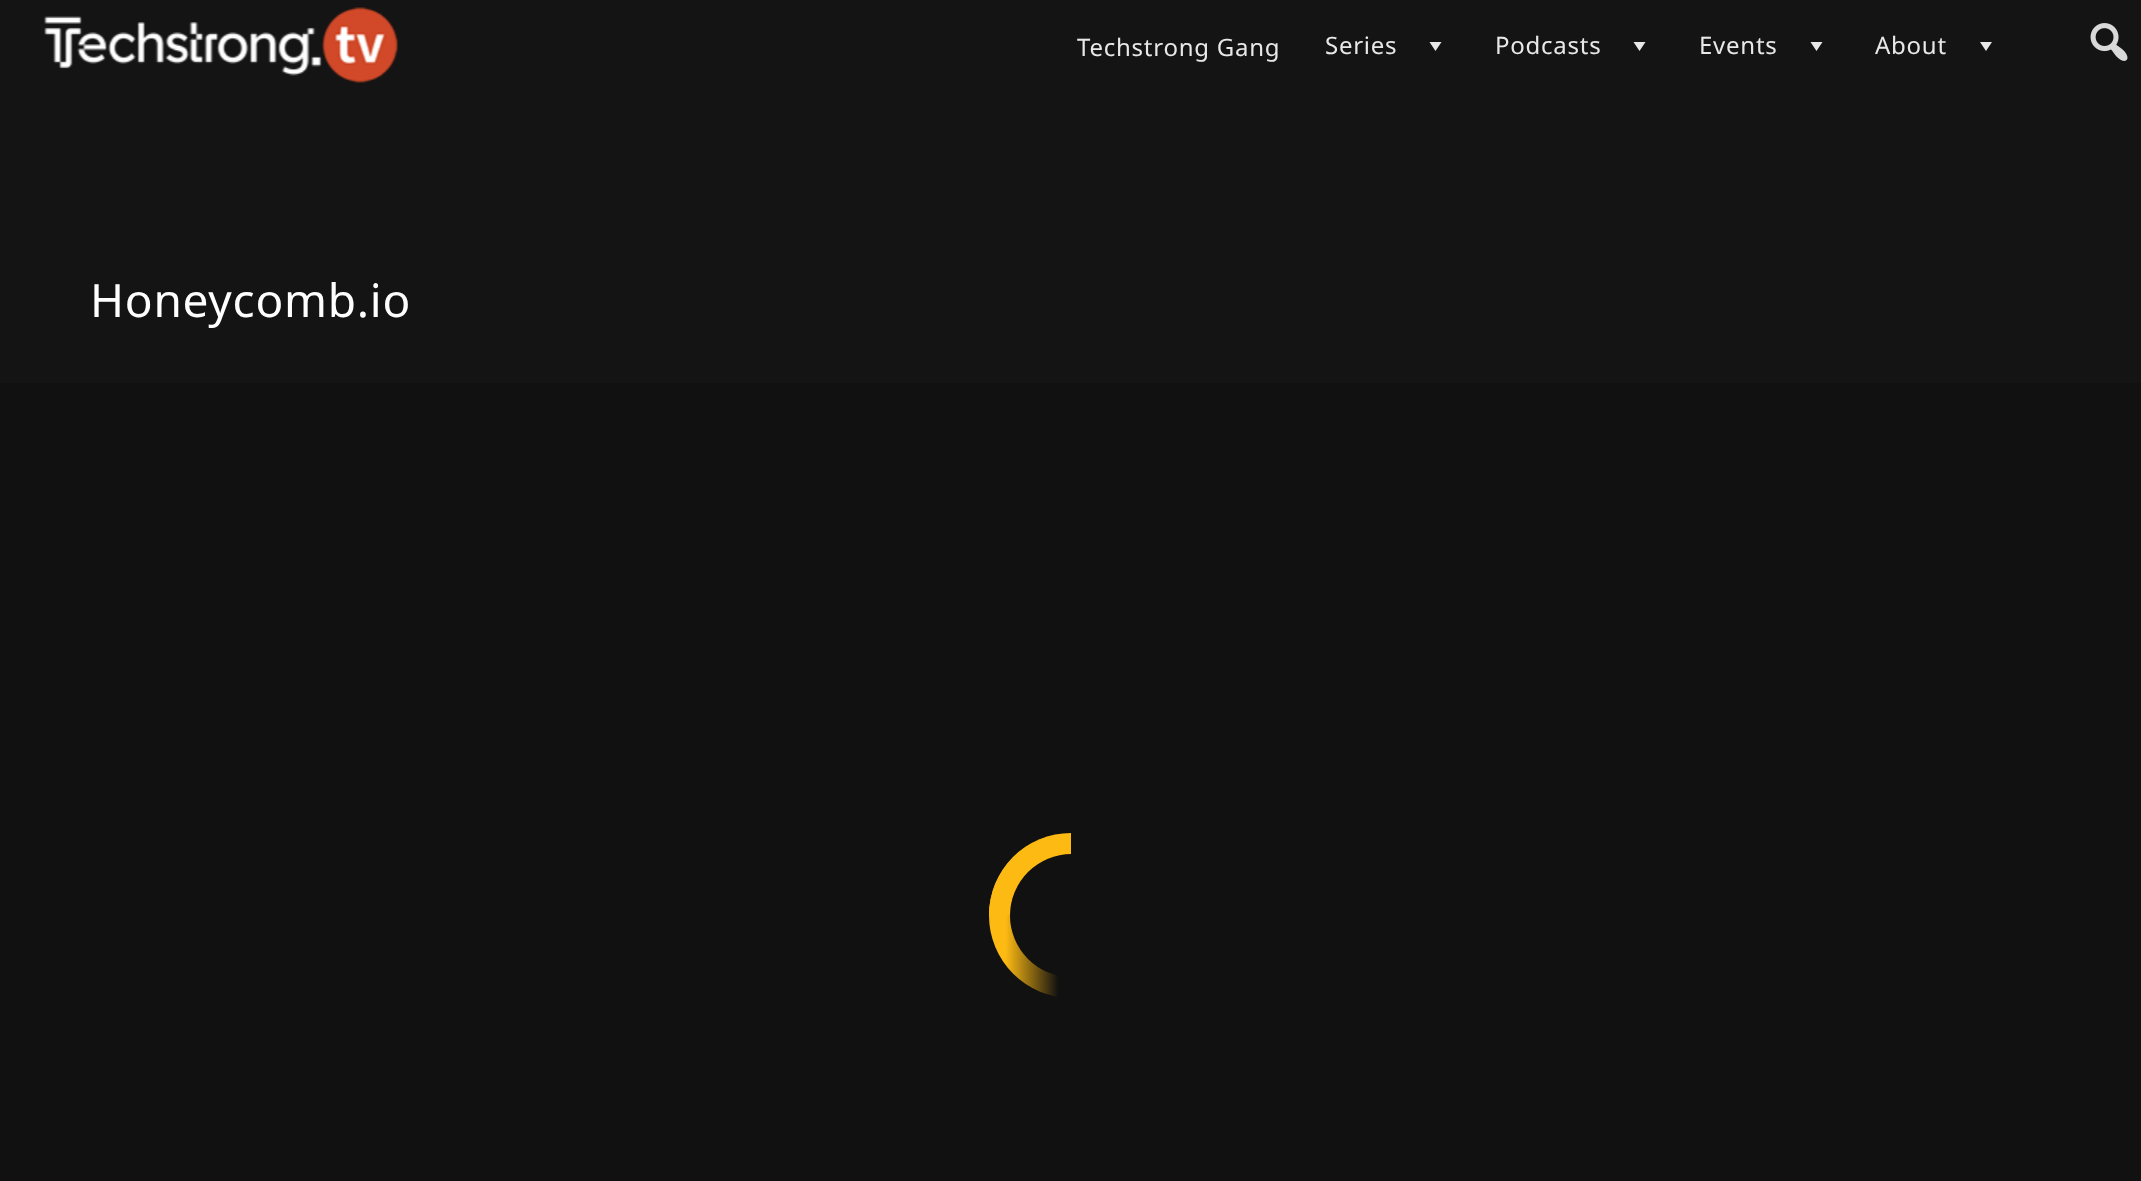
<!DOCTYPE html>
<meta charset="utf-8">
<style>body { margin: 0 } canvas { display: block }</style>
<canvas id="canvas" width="2141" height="1181"></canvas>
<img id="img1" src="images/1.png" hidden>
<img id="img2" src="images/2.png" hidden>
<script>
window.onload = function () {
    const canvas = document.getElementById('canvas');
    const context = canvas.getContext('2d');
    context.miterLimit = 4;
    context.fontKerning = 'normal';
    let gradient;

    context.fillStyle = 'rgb(20, 20, 20)';
    context.fillRect(0, 0, 2141, 1181);
    context.drawImage(document.getElementById('img1'), 44, 7, 354, 76);
    context.fillStyle = 'rgb(232, 232, 232)';
    context.beginPath();
    context.moveTo(1441.5, 42);
    context.lineTo(1435.5, 51);
    context.lineTo(1429.5, 42);
    context.closePath();
    context.fill();
    context.beginPath();
    context.moveTo(1645.5, 42);
    context.lineTo(1639.5, 51);
    context.lineTo(1633.5, 42);
    context.closePath();
    context.fill();
    context.beginPath();
    context.moveTo(1822.5, 42);
    context.lineTo(1816.5, 51);
    context.lineTo(1810.5, 42);
    context.closePath();
    context.fill();
    context.beginPath();
    context.moveTo(1992, 42);
    context.lineTo(1986, 51);
    context.lineTo(1980, 42);
    context.closePath();
    context.fill();
    context.drawImage(document.getElementById('img2'), 2090, 23, 38, 38);
    context.fillStyle = 'rgb(17, 17, 17)';
    context.fillRect(0, 383, 2141, 798);
    gradient = context.createLinearGradient(989, 915, 1154, 915);
    gradient.addColorStop(0.1, 'rgb(253, 186, 19)');
    gradient.addColorStop(0.42, 'rgb(17, 17, 17)');
    context.fillStyle = gradient;
    context.beginPath();
    context.arc(1071.5, 915.5, 82.5, 0, 2 * Math.PI);
    context.fill();
    context.fillStyle = 'rgb(253, 186, 19)';
    context.beginPath();
    context.roundRect(989, 833, 82, 82, [82, 0, 0, 0]);
    context.fill();
    context.fillStyle = 'rgb(17, 17, 17)';
    context.beginPath();
    context.arc(1071.5, 915.5, 61.5, 0, 2 * Math.PI);
    context.fill();
    context.letterSpacing = '0.75px';
    context.font = '24px Noto Sans';
    context.fillStyle = 'rgb(232, 232, 232)';
    context.fillText('Techstrong Gang', 1077, 56);
    context.fillText('Series', 1325, 54);
    context.fillText('Podcasts', 1495, 54);
    context.fillText('Events', 1699, 54);
    context.fillText('About', 1875, 54);
    context.font = '46px Noto Sans';
    context.fillStyle = 'rgb(255, 255, 255)';
    context.fillText('Honeycomb.io', 90, 317);
};
</script>
